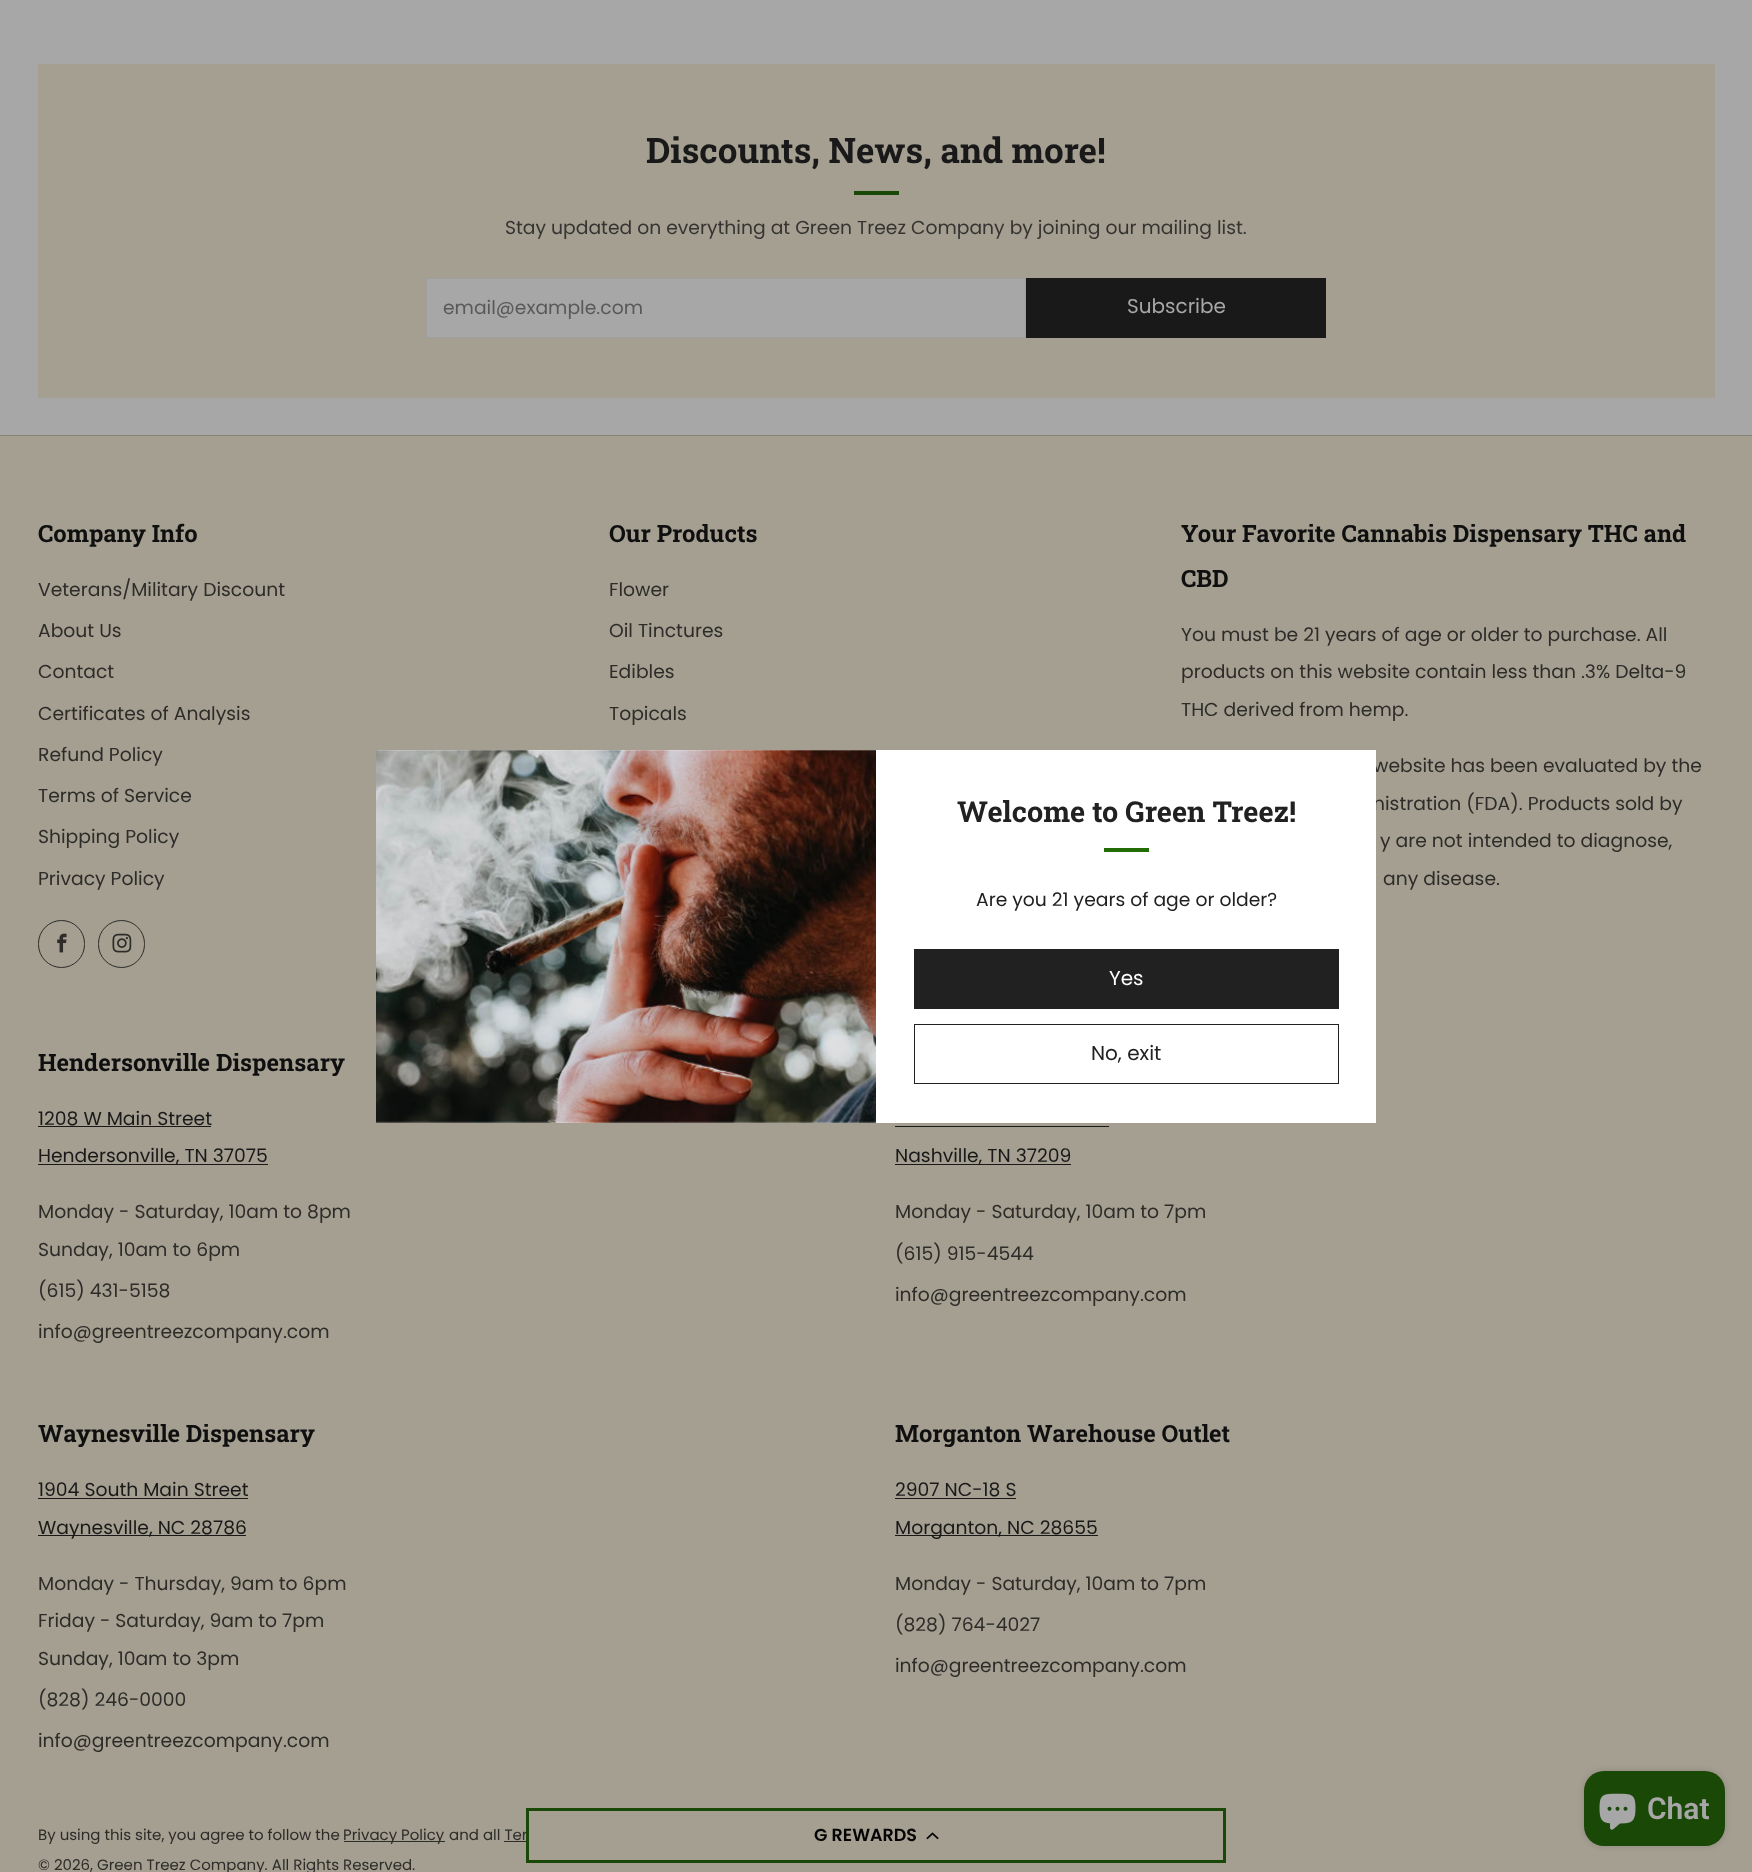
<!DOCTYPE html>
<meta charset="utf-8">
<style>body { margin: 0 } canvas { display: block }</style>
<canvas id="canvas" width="1752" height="1872"></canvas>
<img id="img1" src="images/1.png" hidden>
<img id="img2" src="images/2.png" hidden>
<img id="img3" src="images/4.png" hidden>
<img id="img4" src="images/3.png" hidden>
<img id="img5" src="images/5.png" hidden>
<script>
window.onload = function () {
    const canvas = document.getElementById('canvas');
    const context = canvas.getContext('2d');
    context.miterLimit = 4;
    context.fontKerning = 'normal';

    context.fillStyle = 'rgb(167, 167, 167)';
    context.fillRect(0, 0, 1752, 1872);
    context.fillStyle = 'rgb(164, 159, 145)';
    context.fillRect(38, 64, 1677, 334);
    context.fillStyle = 'rgb(26, 72, 7)';
    context.fillRect(854, 191, 45, 4);
    context.fillStyle = 'rgb(167, 167, 167)';
    context.beginPath();
    context.rect(426.5, 278.5, 599, 59);
    context.fill();
    context.strokeStyle = 'rgb(158, 158, 158)';
    context.stroke();
    context.fillStyle = 'rgb(25, 25, 25)';
    context.fillRect(1026, 278, 300, 60);
    context.fillStyle = 'rgb(164, 159, 145)';
    context.fillRect(0, 436, 1752, 1436);
    context.fillStyle = 'rgb(134, 131, 119)';
    context.fillRect(0, 435, 1752, 1);
    context.beginPath();
    context.roundRect(38.5, 920.5, 46, 47, 23);
    context.strokeStyle = 'rgb(45, 44, 41)';
    context.stroke();
    context.drawImage(document.getElementById('img1'), 57, 933, 10, 20);
    context.beginPath();
    context.roundRect(98.5, 920.5, 46, 47, 23);
    context.stroke();
    context.drawImage(document.getElementById('img2'), 112, 933, 20, 20);
    context.fillStyle = 'rgb(25, 25, 25)';
    context.fillRect(38, 1126, 173, 1);
    context.fillRect(38, 1164, 230, 1);
    context.fillRect(895, 1126, 214, 1);
    context.fillRect(895, 1164, 176, 1);
    context.fillRect(38, 1498, 210, 1);
    context.fillRect(38, 1535, 208, 1);
    context.fillRect(895, 1498, 121, 1);
    context.fillRect(895, 1535, 203, 1);
    context.fillStyle = 'rgb(45, 44, 41)';
    context.fillRect(344, 1841, 101, 1);
    context.fillRect(504, 1841, 22, 1);
    context.fillStyle = 'rgba(4, 4, 4, 0.15)';
    context.filter = 'blur(3px)';
    context.beginPath();
    context.roundRect(1584, 1771, 141, 75, 20);
    context.fill();
    context.filter = 'none';
    context.fillStyle = 'rgb(26, 72, 7)';
    context.beginPath();
    context.roundRect(1584, 1771, 141, 75, 20);
    context.fill();
    context.drawImage(document.getElementById('img3'), 1599, 1793, 37, 37);
    context.font = 'bold 35px Roboto Slab';
    context.fillStyle = 'rgb(25, 25, 25)';
    context.fillText('Discounts, News, and more!', 646, 163);
    context.font = '18.75px Poppins';
    context.fillStyle = 'rgb(53, 52, 49)';
    context.fillText('Stay updated on everything at Green Treez Company by joining our mailing list.', 505, 234);
    context.fillStyle = 'rgb(89, 89, 89)';
    context.fillText('email@example.com', 443, 314);
    context.font = '20px Poppins';
    context.fillStyle = 'rgb(167, 167, 167)';
    context.fillText('Subscribe', 1127, 313);
    context.font = 'bold 23.75px Roboto Slab';
    context.fillStyle = 'rgb(15, 15, 15)';
    context.fillText('Company Info', 38, 542);
    context.font = '18.75px Poppins';
    context.fillStyle = 'rgb(45, 44, 41)';
    context.fillText('Veterans/Military Discount', 38, 596);
    context.fillText('About Us', 38, 637);
    context.fillText('Contact', 38, 678);
    context.fillText('Certificates of Analysis', 38, 720);
    context.fillText('Refund Policy', 38, 761);
    context.fillText('Terms of Service', 38, 802);
    context.fillText('Shipping Policy', 38, 843);
    context.fillText('Privacy Policy', 38, 885);
    context.font = 'bold 23.75px Roboto Slab';
    context.fillStyle = 'rgb(15, 15, 15)';
    context.fillText('Our Products', 609, 542);
    context.font = '18.75px Poppins';
    context.fillStyle = 'rgb(45, 44, 41)';
    context.fillText('Flower', 609, 596);
    context.fillText('Oil Tinctures', 609, 637);
    context.fillText('Edibles', 609, 678);
    context.fillText('Topicals', 609, 720);
    context.font = 'bold 23.75px Roboto Slab';
    context.fillStyle = 'rgb(15, 15, 15)';
    context.fillText('Your Favorite Cannabis Dispensary THC and', 1181, 542);
    context.fillText('CBD', 1181, 587);
    context.font = '18.75px Poppins';
    context.fillStyle = 'rgb(45, 44, 41)';
    context.fillText('You must be 21 years of age or older to purchase. All', 1181, 641);
    context.fillText('products on this website contain less than .3% Delta-9', 1181, 678);
    context.fillText('THC derived from hemp.', 1181, 716);
    context.fillText('website has been evaluated by the', 1373, 772);
    context.fillText('nistration (FDA). Products sold by', 1373, 810);
    context.fillText('y are not intended to diagnose,', 1380, 847);
    context.fillText('any disease.', 1383, 885);
    context.font = 'bold 23.75px Roboto Slab';
    context.fillStyle = 'rgb(15, 15, 15)';
    context.fillText('Hendersonville Dispensary', 38, 1071);
    context.font = '18.75px Poppins';
    context.fillStyle = 'rgb(25, 25, 25)';
    context.fillText('1208 W Main Street', 38, 1125);
    context.fillText('Hendersonville, TN 37075', 38, 1162);
    context.fillStyle = 'rgb(45, 44, 41)';
    context.fillText('Monday - Saturday, 10am to 8pm', 38, 1218);
    context.fillText('Sunday, 10am to 6pm', 38, 1256);
    context.fillText('(615) 431-5158', 38, 1297);
    context.fillText('info@greentreezcompany.com', 38, 1338);
    context.fillStyle = 'rgb(25, 25, 25)';
    context.fillText('Nashville, TN 37209', 895, 1162);
    context.fillStyle = 'rgb(45, 44, 41)';
    context.fillText('Monday - Saturday, 10am to 7pm', 895, 1218);
    context.fillText('(615) 915-4544', 895, 1260);
    context.fillText('info@greentreezcompany.com', 895, 1301);
    context.font = 'bold 23.75px Roboto Slab';
    context.fillStyle = 'rgb(15, 15, 15)';
    context.fillText('Waynesville Dispensary', 38, 1442);
    context.font = '18.75px Poppins';
    context.fillStyle = 'rgb(25, 25, 25)';
    context.fillText('1904 South Main Street', 38, 1496);
    context.fillText('Waynesville, NC 28786', 38, 1534);
    context.fillStyle = 'rgb(45, 44, 41)';
    context.fillText('Monday - Thursday, 9am to 6pm', 38, 1590);
    context.fillText('Friday - Saturday, 9am to 7pm', 38, 1627);
    context.fillText('Sunday, 10am to 3pm', 38, 1665);
    context.fillText('(828) 246-0000', 38, 1706);
    context.fillText('info@greentreezcompany.com', 38, 1747);
    context.font = 'bold 23.75px Roboto Slab';
    context.fillStyle = 'rgb(15, 15, 15)';
    context.fillText('Morganton Warehouse Outlet', 895, 1442);
    context.font = '18.75px Poppins';
    context.fillStyle = 'rgb(25, 25, 25)';
    context.fillText('2907 NC-18 S', 895, 1496);
    context.fillText('Morganton, NC 28655', 895, 1534);
    context.fillStyle = 'rgb(45, 44, 41)';
    context.fillText('Monday - Saturday, 10am to 7pm', 895, 1590);
    context.fillText('(828) 764-4027', 895, 1631);
    context.fillText('info@greentreezcompany.com', 895, 1672);
    context.font = '15px Poppins';
    context.fillText('By using this site, you agree to follow the', 38, 1840);
    context.fillText('Privacy Policy', 343, 1840);
    context.fillText('and all Ter', 449, 1840);
    context.fillText('© 2026, Green Treez Company. All Rights Reserved.', 38, 1870);
    context.fillStyle = 'rgb(255, 255, 255)';
    context.fillRect(376, 750, 1000, 373);
    context.drawImage(document.getElementById('img4'), 376, 750, 500, 373);
    context.font = 'bold 28.75px Roboto Slab';
    context.fillStyle = 'rgb(33, 33, 33)';
    context.fillText('Welcome to Green Treez!', 957, 822);
    context.fillStyle = 'rgb(35, 107, 5)';
    context.fillRect(1104, 848, 45, 4);
    context.font = '18.75px Poppins';
    context.fillStyle = 'rgb(33, 33, 33)';
    context.fillText('Are you 21 years of age or older?', 976, 906);
    context.fillRect(914, 949, 425, 60);
    context.font = '20px Poppins';
    context.fillStyle = 'rgb(255, 255, 255)';
    context.fillText('Yes', 1109, 985);
    context.strokeStyle = 'rgb(33, 33, 33)';
    context.strokeRect(914.5, 1024.5, 424, 59);
    context.fillStyle = 'rgb(33, 33, 33)';
    context.fillText('No, exit', 1091, 1060);
    context.font = '600 30px Roboto';
    context.fillStyle = 'rgb(167, 167, 167)';
    context.fillText('Chat', 1647, 1819);
    context.strokeStyle = 'rgb(26, 72, 7)';
    context.lineWidth = 3;
    context.strokeRect(527.5, 1809.5, 697, 52);
    context.font = '600 17.5px Poppins';
    context.fillStyle = 'rgb(4, 4, 4)';
    context.fillText('G REWARDS', 814, 1841);
    context.drawImage(document.getElementById('img5'), 926, 1832, 13, 8);
};
</script>
